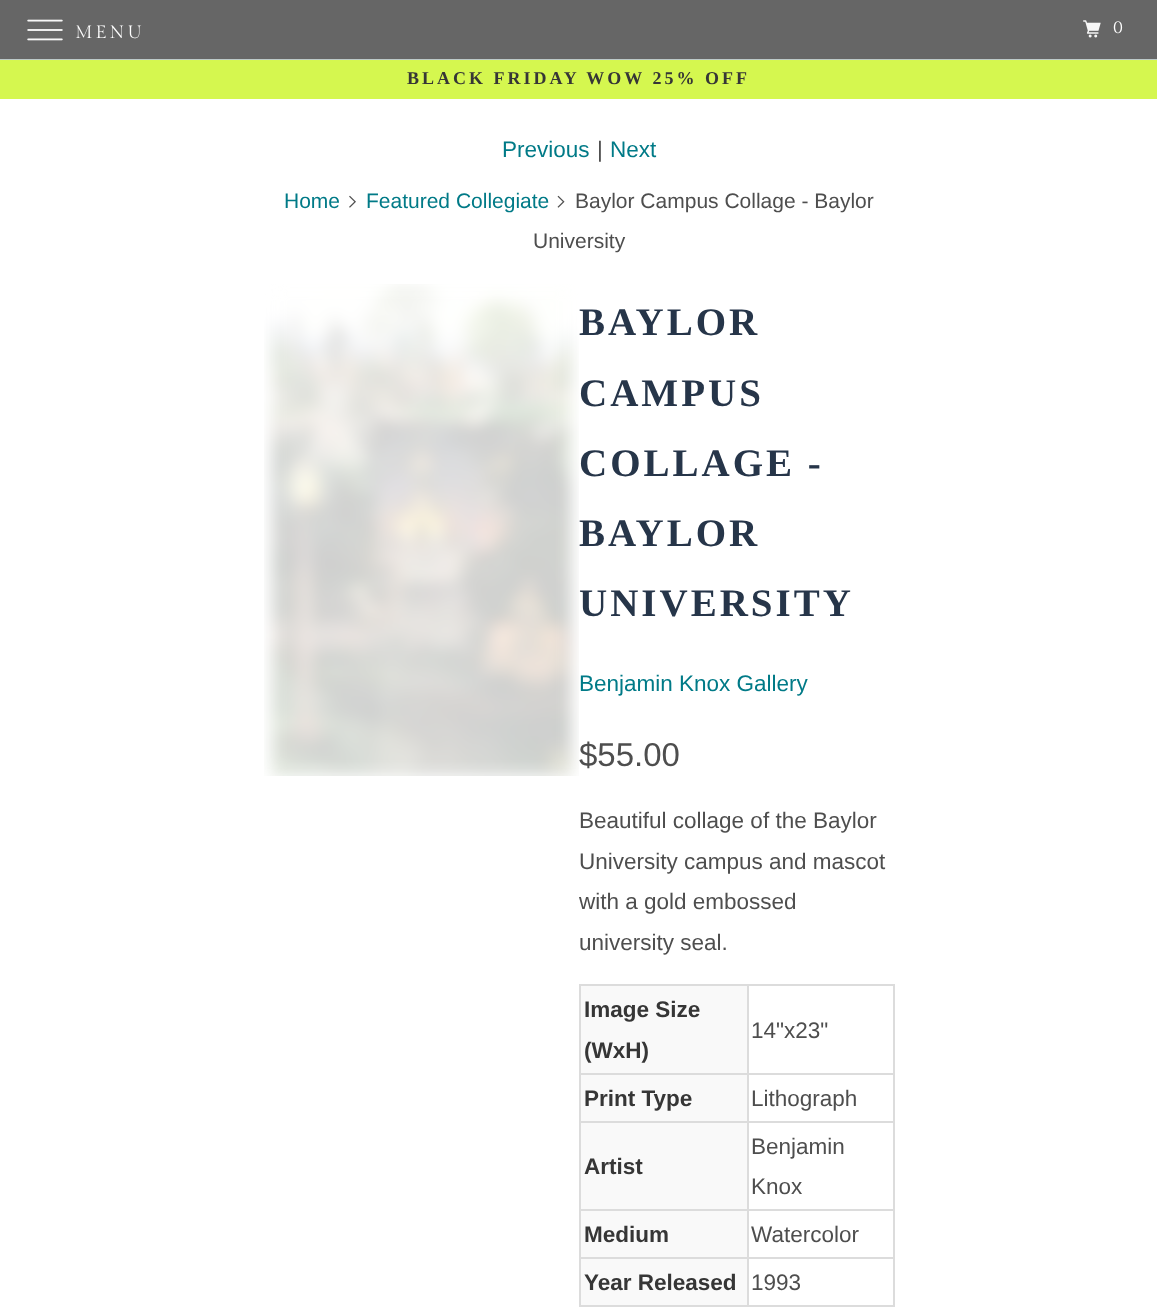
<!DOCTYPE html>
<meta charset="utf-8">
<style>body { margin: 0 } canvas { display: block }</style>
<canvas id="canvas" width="1157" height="1312"></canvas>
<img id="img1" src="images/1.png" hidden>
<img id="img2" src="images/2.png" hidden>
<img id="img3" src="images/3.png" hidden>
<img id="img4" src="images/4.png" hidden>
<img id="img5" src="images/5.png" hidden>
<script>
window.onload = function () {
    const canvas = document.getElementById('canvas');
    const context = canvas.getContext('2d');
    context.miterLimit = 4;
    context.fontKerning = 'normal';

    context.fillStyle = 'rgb(255, 255, 255)';
    context.fillRect(0, 0, 1157, 1312);
    context.fillStyle = 'rgb(102, 102, 102)';
    context.fillRect(0, 0, 1157, 59);
    context.fillStyle = 'rgb(188, 201, 201)';
    context.fillRect(0, 59, 1157, 1);
    context.drawImage(document.getElementById('img1'), 27, 19, 36, 22);
    context.drawImage(document.getElementById('img2'), 1083, 20, 18, 18);
    context.fillStyle = 'rgb(213, 247, 79)';
    context.fillRect(0, 60, 1157, 39);
    context.drawImage(document.getElementById('img3'), 349, 195, 7, 13);
    context.drawImage(document.getElementById('img4'), 557, 195, 8, 13);
    context.drawImage(document.getElementById('img5'), 264, 284, 315, 492);
    context.fillStyle = 'rgb(220, 220, 220)';
    context.fillRect(579, 984, 315, 2);
    context.fillRect(579, 1073, 315, 2);
    context.fillStyle = 'rgb(249, 249, 249)';
    context.fillRect(581, 986, 166, 87);
    context.fillStyle = 'rgb(220, 220, 220)';
    context.fillRect(579, 1121, 315, 2);
    context.fillStyle = 'rgb(249, 249, 249)';
    context.fillRect(581, 1075, 166, 46);
    context.fillStyle = 'rgb(220, 220, 220)';
    context.fillRect(579, 1209, 315, 2);
    context.fillStyle = 'rgb(249, 249, 249)';
    context.fillRect(581, 1123, 166, 86);
    context.fillStyle = 'rgb(220, 220, 220)';
    context.fillRect(579, 1257, 315, 2);
    context.fillStyle = 'rgb(249, 249, 249)';
    context.fillRect(581, 1211, 166, 46);
    context.fillStyle = 'rgb(220, 220, 220)';
    context.fillRect(579, 1305, 315, 2);
    context.fillStyle = 'rgb(249, 249, 249)';
    context.fillRect(581, 1259, 166, 46);
    context.fillStyle = 'rgb(220, 220, 220)';
    context.fillRect(747, 984, 2, 323);
    context.fillRect(579, 984, 2, 323);
    context.fillRect(893, 984, 2, 323);
    context.letterSpacing = '3px';
    context.font = '18px Gilda Display';
    context.fillStyle = 'rgb(255, 255, 255)';
    context.fillText('MENU', 75, 38);
    context.fillText('0', 1113, 33);
    context.font = 'bold 18px Liberation Serif';
    context.fillStyle = 'rgb(54, 54, 54)';
    context.fillText('BLACK FRIDAY WOW 25% OFF', 407, 84);
    context.letterSpacing = '0px';
    context.font = '22.5px Liberation Sans';
    context.fillStyle = 'rgb(0, 122, 135)';
    context.fillText('Previous', 502, 157);
    context.fillStyle = 'rgb(78, 78, 78)';
    context.fillText('|', 597, 157);
    context.fillStyle = 'rgb(0, 122, 135)';
    context.fillText('Next', 610, 157);
    context.font = '21px Liberation Sans';
    context.fillText('Home', 284, 208);
    context.fillText('Featured Collegiate', 366, 208);
    context.fillStyle = 'rgb(78, 78, 78)';
    context.fillText('Baylor Campus Collage - Baylor', 575, 208);
    context.fillText('University', 533, 248);
    context.letterSpacing = '3px';
    context.font = 'bold 39px Liberation Serif';
    context.fillStyle = 'rgb(38, 53, 73)';
    context.fillText('BAYLOR', 579, 335);
    context.fillText('CAMPUS', 579, 406);
    context.fillText('COLLAGE -', 579, 476);
    context.fillText('BAYLOR', 579, 546);
    context.fillText('UNIVERSITY', 579, 616);
    context.letterSpacing = '0px';
    context.font = '22.5px Liberation Sans';
    context.fillStyle = 'rgb(0, 122, 135)';
    context.fillText('Benjamin Knox Gallery', 579, 691);
    context.font = '33px Liberation Sans';
    context.fillStyle = 'rgb(78, 78, 78)';
    context.fillText('$55.00', 579, 766);
    context.font = '22.5px Liberation Sans';
    context.fillText('Beautiful collage of the Baylor', 579, 828);
    context.fillText('University campus and mascot', 579, 869);
    context.fillText('with a gold embossed', 579, 909);
    context.fillText('university seal.', 579, 950);
    context.font = 'bold 22.5px Liberation Sans';
    context.fillStyle = 'rgb(54, 54, 54)';
    context.fillText('Image Size', 584, 1017);
    context.fillText('(WxH)', 584, 1058);
    context.font = '22.5px Liberation Sans';
    context.fillStyle = 'rgb(78, 78, 78)';
    context.fillText('14"x23"', 751, 1038);
    context.font = 'bold 22.5px Liberation Sans';
    context.fillStyle = 'rgb(54, 54, 54)';
    context.fillText('Print Type', 584, 1106);
    context.font = '22.5px Liberation Sans';
    context.fillStyle = 'rgb(78, 78, 78)';
    context.fillText('Lithograph', 751, 1106);
    context.font = 'bold 22.5px Liberation Sans';
    context.fillStyle = 'rgb(54, 54, 54)';
    context.fillText('Artist', 584, 1174);
    context.font = '22.5px Liberation Sans';
    context.fillStyle = 'rgb(78, 78, 78)';
    context.fillText('Benjamin', 751, 1154);
    context.fillText('Knox', 751, 1194);
    context.font = 'bold 22.5px Liberation Sans';
    context.fillStyle = 'rgb(54, 54, 54)';
    context.fillText('Medium', 584, 1242);
    context.font = '22.5px Liberation Sans';
    context.fillStyle = 'rgb(78, 78, 78)';
    context.fillText('Watercolor', 751, 1242);
    context.font = 'bold 22.5px Liberation Sans';
    context.fillStyle = 'rgb(54, 54, 54)';
    context.fillText('Year Released', 584, 1290);
    context.font = '22.5px Liberation Sans';
    context.fillStyle = 'rgb(78, 78, 78)';
    context.fillText('1993', 751, 1290);
};
</script>
